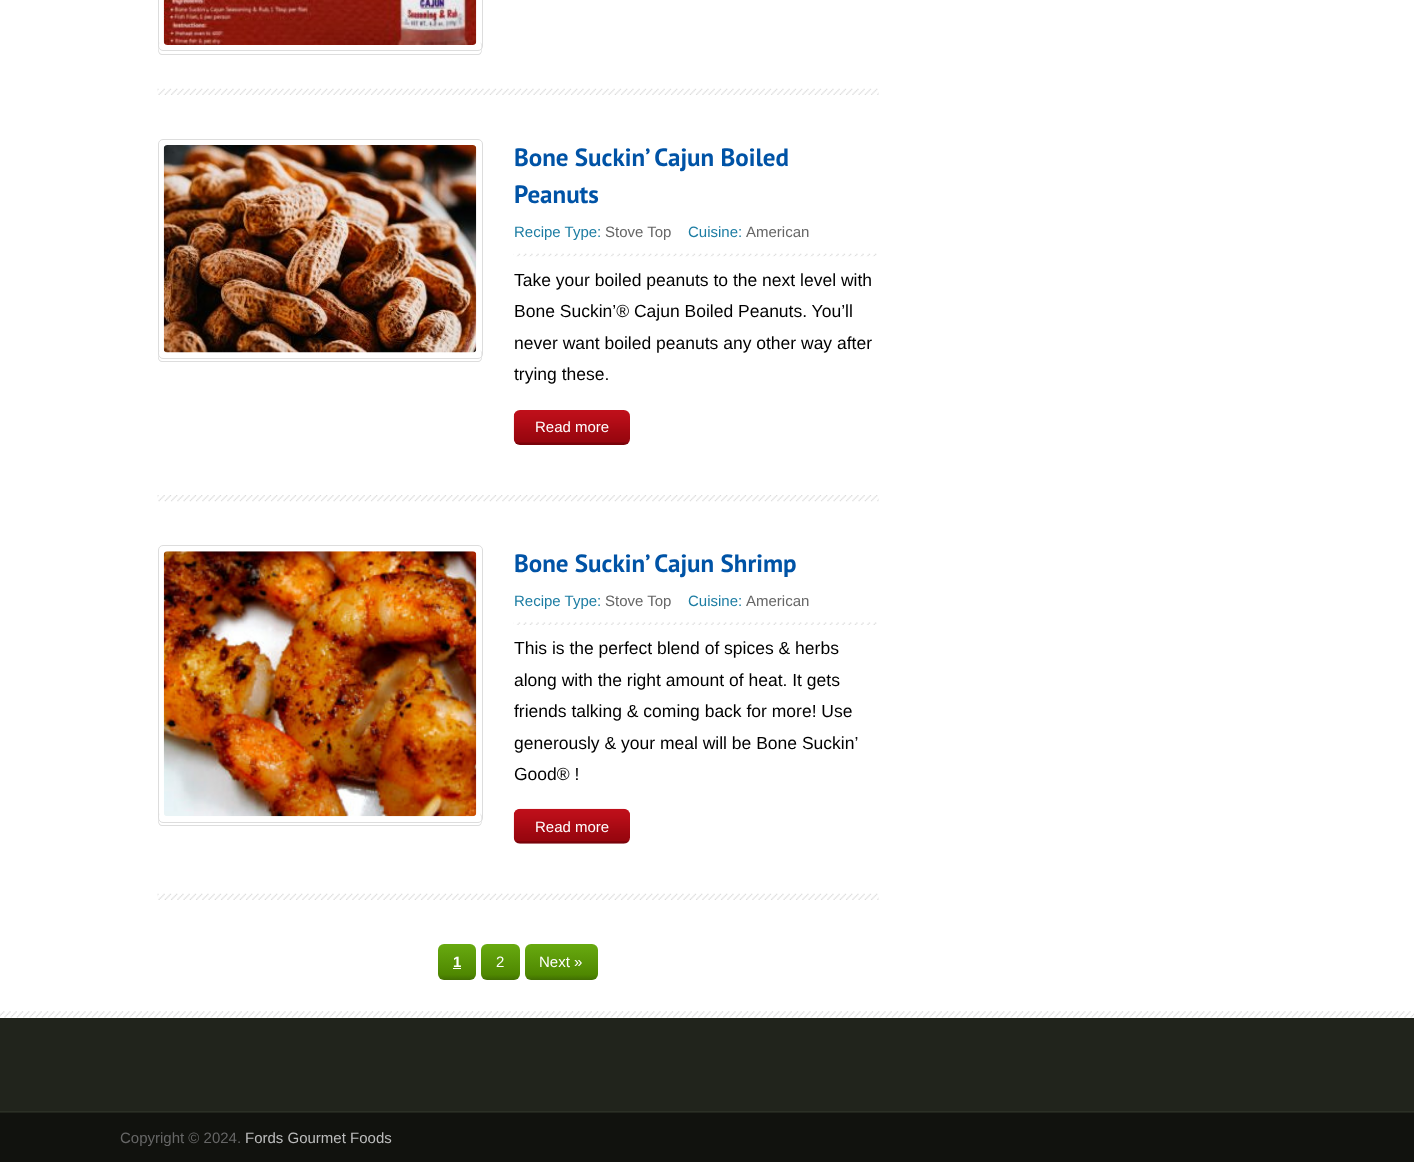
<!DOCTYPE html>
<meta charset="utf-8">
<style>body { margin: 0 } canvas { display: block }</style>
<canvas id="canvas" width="1414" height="1162"></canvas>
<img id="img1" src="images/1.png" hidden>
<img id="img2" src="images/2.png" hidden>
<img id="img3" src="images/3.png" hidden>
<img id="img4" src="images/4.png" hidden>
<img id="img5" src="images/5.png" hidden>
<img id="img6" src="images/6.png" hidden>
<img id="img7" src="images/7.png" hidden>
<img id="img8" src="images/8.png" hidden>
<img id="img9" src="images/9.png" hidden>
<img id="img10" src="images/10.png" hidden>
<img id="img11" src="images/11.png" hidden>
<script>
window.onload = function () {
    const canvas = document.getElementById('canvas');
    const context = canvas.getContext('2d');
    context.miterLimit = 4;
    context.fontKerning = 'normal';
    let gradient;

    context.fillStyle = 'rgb(255, 255, 255)';
    context.fillRect(0, 0, 1414, 1162);
    context.drawImage(document.getElementById('img1'), 157, 88, 722, 7);
    context.beginPath();
    context.roundRect(158.5, -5.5, 324, 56, 4.5);
    context.strokeStyle = 'rgb(221, 221, 221)';
    context.stroke();
    context.fillStyle = 'rgb(221, 221, 221)';
    context.beginPath();
    context.moveTo(162, 41);
    context.lineTo(478, 41);
    context.bezierCurveTo(480, 41, 482, 43, 482, 46);
    context.lineTo(482, 50);
    context.bezierCurveTo(482, 53, 480, 55, 478, 55);
    context.lineTo(162, 55);
    context.bezierCurveTo(160, 55, 158, 53, 158, 50);
    context.lineTo(158, 46);
    context.bezierCurveTo(158, 43, 160, 41, 162, 41);
    context.closePath();
    context.moveTo(162, 41);
    context.lineTo(478, 41);
    context.bezierCurveTo(479, 41, 480, 43, 481, 44);
    context.bezierCurveTo(482, 47, 482, 54, 478, 54);
    context.lineTo(162, 54);
    context.bezierCurveTo(157, 54, 158, 41, 162, 41);
    context.closePath();
    context.fill('evenodd');
    context.fillStyle = 'rgb(255, 255, 255)';
    context.beginPath();
    context.roundRect(159, -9, 322, 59, 9);
    context.fill();
    context.drawImage(document.getElementById('img2'), 163, 0, 314, 45);
    context.drawImage(document.getElementById('img3'), 157, 495, 722, 7);
    context.beginPath();
    context.roundRect(158.5, 139.5, 324, 219, 4.5);
    context.stroke();
    context.fillStyle = 'rgb(221, 221, 221)';
    context.beginPath();
    context.moveTo(162, 349);
    context.lineTo(478, 349);
    context.bezierCurveTo(480, 349, 482, 351, 482, 354);
    context.lineTo(482, 358);
    context.bezierCurveTo(482, 360, 480, 362, 478, 362);
    context.lineTo(162, 362);
    context.bezierCurveTo(160, 362, 158, 360, 158, 358);
    context.lineTo(158, 354);
    context.bezierCurveTo(158, 351, 160, 349, 162, 349);
    context.closePath();
    context.moveTo(162, 349);
    context.lineTo(478, 349);
    context.bezierCurveTo(479, 349, 480, 350, 481, 352);
    context.bezierCurveTo(482, 355, 482, 361, 478, 361);
    context.lineTo(162, 361);
    context.bezierCurveTo(157, 361, 158, 349, 162, 349);
    context.closePath();
    context.fill('evenodd');
    context.fillStyle = 'rgb(255, 255, 255)';
    context.beginPath();
    context.roundRect(159, 140, 322, 218, 9);
    context.fill();
    context.drawImage(document.getElementById('img4'), 163, 145, 314, 208);
    context.drawImage(document.getElementById('img5'), 513, 253, 364, 4);
    context.drawImage(document.getElementById('img6'), 513, 410, 117, 35);
    context.drawImage(document.getElementById('img7'), 157, 893, 722, 7);
    context.beginPath();
    context.roundRect(158.5, 545.5, 324, 277, 4.5);
    context.stroke();
    context.fillStyle = 'rgb(221, 221, 221)';
    context.beginPath();
    context.moveTo(162, 812);
    context.lineTo(478, 812);
    context.bezierCurveTo(480, 812, 482, 815, 482, 818);
    context.lineTo(482, 821);
    context.bezierCurveTo(482, 824, 480, 826, 478, 826);
    context.lineTo(162, 826);
    context.bezierCurveTo(160, 826, 158, 824, 158, 821);
    context.lineTo(158, 818);
    context.bezierCurveTo(158, 815, 160, 812, 162, 812);
    context.closePath();
    context.moveTo(162, 812);
    context.lineTo(478, 812);
    context.bezierCurveTo(479, 813, 480, 814, 481, 816);
    context.bezierCurveTo(482, 819, 482, 825, 478, 825);
    context.lineTo(162, 825);
    context.bezierCurveTo(157, 825, 158, 812, 162, 812);
    context.closePath();
    context.fill('evenodd');
    context.fillStyle = 'rgb(255, 255, 255)';
    context.beginPath();
    context.roundRect(159, 546, 322, 275, 9);
    context.fill();
    context.drawImage(document.getElementById('img8'), 163, 551, 314, 266);
    context.drawImage(document.getElementById('img9'), 513, 622, 364, 3);
    context.drawImage(document.getElementById('img10'), 513, 808, 117, 36);
    gradient = context.createLinearGradient(457, 980, 457, 944);
    gradient.addColorStop(0, 'rgb(65, 111, 3)');
    gradient.addColorStop(0.15, 'rgb(79, 136, 1)');
    gradient.addColorStop(1, 'rgb(104, 170, 16)');
    context.fillStyle = gradient;
    context.beginPath();
    context.roundRect(438, 944, 38, 36, 6);
    context.fill();
    context.fillStyle = 'rgb(255, 255, 255)';
    context.fillRect(453, 968, 8, 1);
    gradient = context.createLinearGradient(501, 980, 501, 944);
    gradient.addColorStop(0, 'rgb(65, 111, 3)');
    gradient.addColorStop(0.15, 'rgb(79, 136, 1)');
    gradient.addColorStop(1, 'rgb(104, 170, 16)');
    context.fillStyle = gradient;
    context.beginPath();
    context.roundRect(481, 944, 39, 36, 6);
    context.fill();
    gradient = context.createLinearGradient(561, 980, 561, 944);
    gradient.addColorStop(0, 'rgb(65, 111, 3)');
    gradient.addColorStop(0.15, 'rgb(79, 136, 1)');
    gradient.addColorStop(1, 'rgb(104, 170, 16)');
    context.fillStyle = gradient;
    context.beginPath();
    context.roundRect(525, 944, 73, 36, 6);
    context.fill();
    context.drawImage(document.getElementById('img11'), 0, 1011, 1414, 7);
    context.fillStyle = 'rgb(33, 36, 28)';
    context.fillRect(0, 1018, 1414, 95);
    context.fillStyle = 'rgb(44, 48, 38)';
    context.fillRect(0, 1111, 1414, 1);
    context.fillStyle = 'rgb(17, 18, 14)';
    context.fillRect(0, 1113, 1414, 49);
    context.font = 'bold 25px PT Sans';
    context.fillStyle = 'rgb(0, 83, 166)';
    context.fillText('Bone Suckin’ Cajun Boiled', 514, 166);
    context.fillText('Peanuts', 514, 203);
    context.font = '15px Liberation Sans';
    context.fillStyle = 'rgb(29, 125, 163)';
    context.fillText('Recipe Type:', 514, 237);
    context.fillStyle = 'rgb(102, 102, 102)';
    context.fillText('Stove Top', 605, 237);
    context.fillStyle = 'rgb(29, 125, 163)';
    context.fillText('Cuisine:', 688, 237);
    context.fillStyle = 'rgb(102, 102, 102)';
    context.fillText('American', 746, 237);
    context.font = '17.5px Liberation Sans';
    context.fillStyle = 'rgb(0, 0, 0)';
    context.fillText('Take your boiled peanuts to the next level with', 514, 286);
    context.fillText('Bone Suckin’® Cajun Boiled Peanuts. You’ll', 514, 317);
    context.fillText('never want boiled peanuts any other way after', 514, 349);
    context.fillText('trying these.', 514, 380);
    context.font = '15px Liberation Sans';
    context.fillStyle = 'rgb(255, 255, 255)';
    context.fillText('Read more', 535, 432);
    context.font = 'bold 25px PT Sans';
    context.fillStyle = 'rgb(0, 83, 166)';
    context.fillText('Bone Suckin’ Cajun Shrimp', 514, 572);
    context.font = '15px Liberation Sans';
    context.fillStyle = 'rgb(29, 125, 163)';
    context.fillText('Recipe Type:', 514, 606);
    context.fillStyle = 'rgb(102, 102, 102)';
    context.fillText('Stove Top', 605, 606);
    context.fillStyle = 'rgb(29, 125, 163)';
    context.fillText('Cuisine:', 688, 606);
    context.fillStyle = 'rgb(102, 102, 102)';
    context.fillText('American', 746, 606);
    context.font = '17.5px Liberation Sans';
    context.fillStyle = 'rgb(0, 0, 0)';
    context.fillText('This is the perfect blend of spices & herbs', 514, 654);
    context.fillText('along with the right amount of heat. It gets', 514, 686);
    context.fillText('friends talking & coming back for more! Use', 514, 717);
    context.fillText('generously & your meal will be Bone Suckin’', 514, 749);
    context.fillText('Good® !', 514, 780);
    context.font = '15px Liberation Sans';
    context.fillStyle = 'rgb(255, 255, 255)';
    context.fillText('Read more', 535, 832);
    context.font = 'bold 15px Liberation Sans';
    context.fillText('1', 453, 967);
    context.font = '15px Liberation Sans';
    context.fillText('2', 496, 967);
    context.fillText('Next »', 539, 967);
    context.fillStyle = 'rgb(102, 102, 102)';
    context.fillText('Copyright © 2024.', 120, 1143);
    context.fillStyle = 'rgb(189, 189, 189)';
    context.fillText('Fords Gourmet Foods', 245, 1143);
};
</script>
